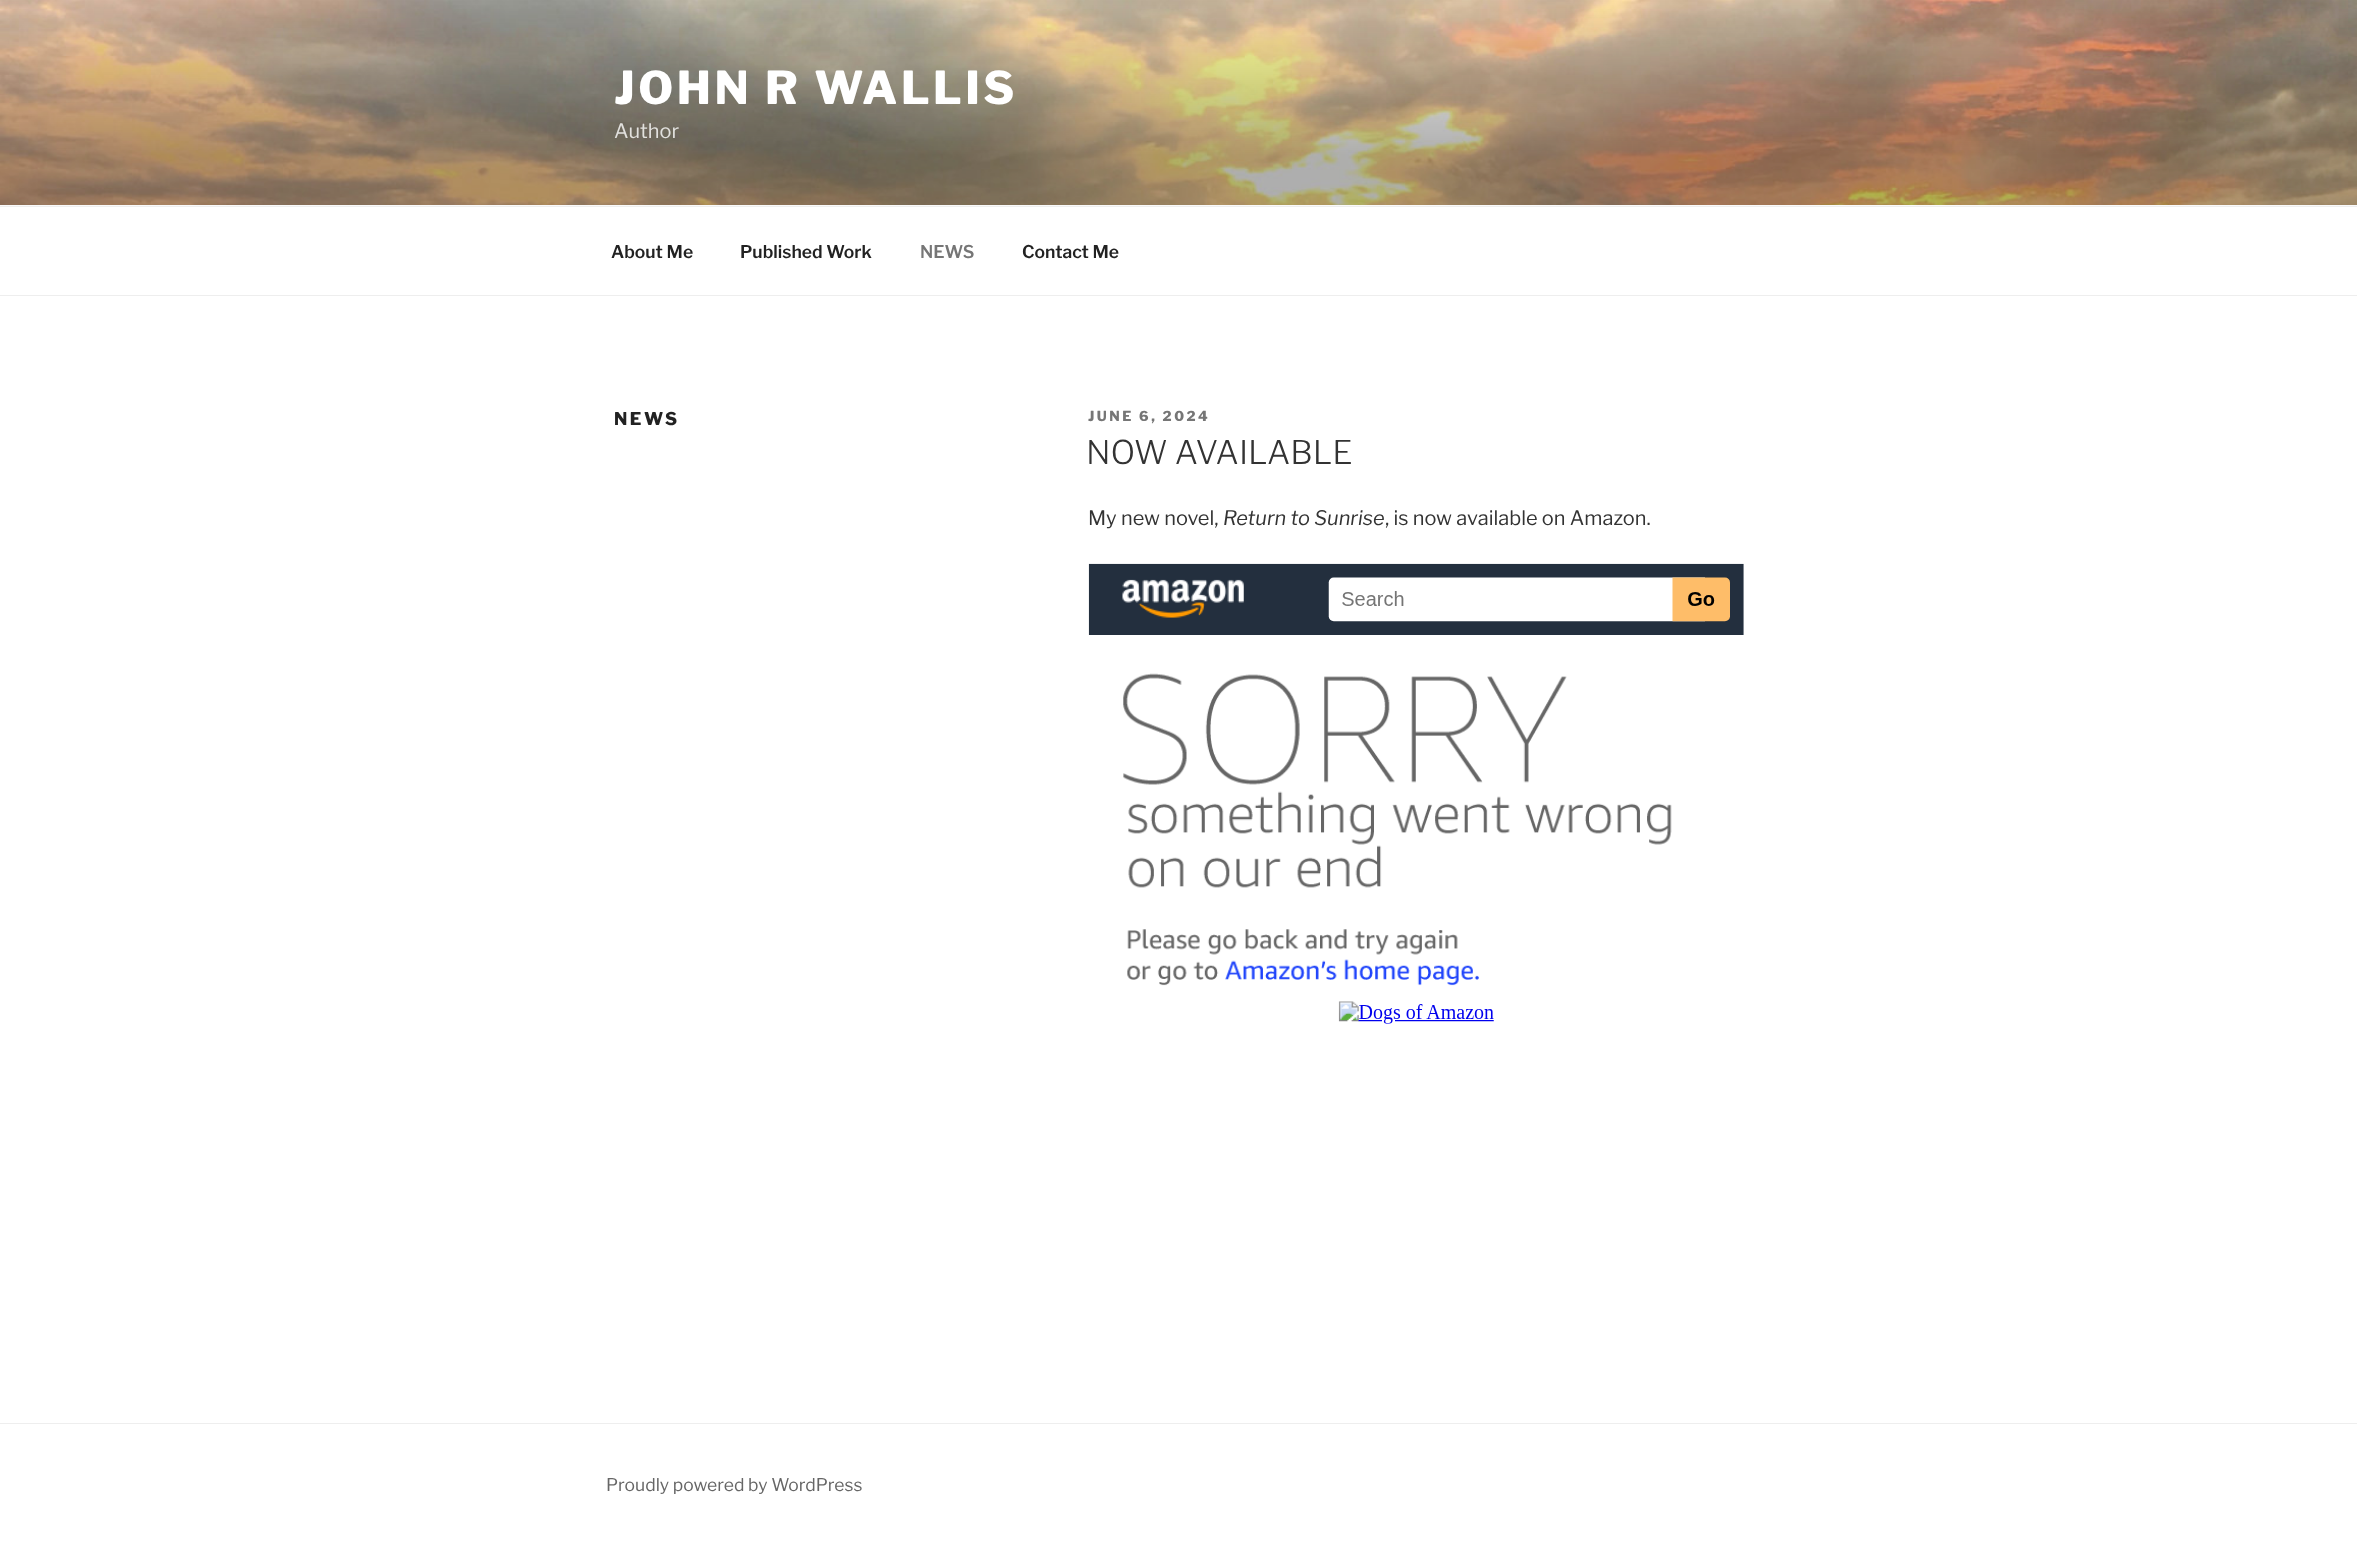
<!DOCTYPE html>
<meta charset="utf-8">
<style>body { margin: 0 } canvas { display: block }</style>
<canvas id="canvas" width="2357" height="1557"></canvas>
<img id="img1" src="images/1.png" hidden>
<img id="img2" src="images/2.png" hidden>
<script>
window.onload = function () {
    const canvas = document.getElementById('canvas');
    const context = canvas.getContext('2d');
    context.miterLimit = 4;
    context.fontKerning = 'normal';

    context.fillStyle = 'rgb(255, 255, 255)';
    context.fillRect(0, 0, 2357, 1557);
    context.fillStyle = 'rgb(250, 250, 250)';
    context.fillRect(0, 205, 2357, 1);
    context.drawImage(document.getElementById('img1'), 0, 0, 2357, 205);
    context.fillStyle = 'rgb(238, 238, 238)';
    context.fillRect(0, 206, 2357, 1);
    context.fillRect(0, 295, 2357, 1);
    context.drawImage(document.getElementById('img2'), 1088, 563, 656, 461);
    context.fillRect(0, 1423, 2357, 1);
    context.letterSpacing = '3.6px';
    context.font = '100 45px Libre Franklin';
    context.fillStyle = 'rgb(255, 255, 255)';
    context.fillText('JOHN R WALLIS', 614, 104);
    context.letterSpacing = '0px';
    context.font = '100 20px "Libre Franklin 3"';
    context.fillStyle = 'rgb(226, 225, 222)';
    context.fillText('Author', 614, 138);
    context.font = '100 17.5px "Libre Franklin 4"';
    context.fillStyle = 'rgb(34, 34, 34)';
    context.fillText('About Me', 611, 258);
    context.fillText('Published Work', 740, 258);
    context.fillStyle = 'rgb(118, 118, 118)';
    context.fillText('NEWS', 920, 258);
    context.fillStyle = 'rgb(34, 34, 34)';
    context.fillText('Contact Me', 1022, 258);
    context.letterSpacing = '2.5px';
    context.font = '100 17.5px Libre Franklin';
    context.fillText('NEWS', 614, 425);
    context.font = '100 13.75px Libre Franklin';
    context.fillStyle = 'rgb(118, 118, 118)';
    context.fillText('JUNE 6, 2024', 1088, 421);
    context.letterSpacing = '0px';
    context.font = '100 32.5px "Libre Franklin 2"';
    context.fillStyle = 'rgb(51, 51, 51)';
    context.fillText('NOW AVAILABLE', 1086, 464);
    context.font = '100 20px "Libre Franklin 3"';
    context.fillText('My new novel,', 1088, 525);
    context.font = 'italic 100 20px Libre Franklin';
    context.fillText('Return to Sunrise', 1223, 525);
    context.font = '100 20px "Libre Franklin 3"';
    context.fillText(', is now available on Amazon.', 1385, 525);
    context.font = '100 17.5px "Libre Franklin 3"';
    context.fillStyle = 'rgb(102, 102, 102)';
    context.fillText('Proudly powered by WordPress', 606, 1491);
};
</script>
